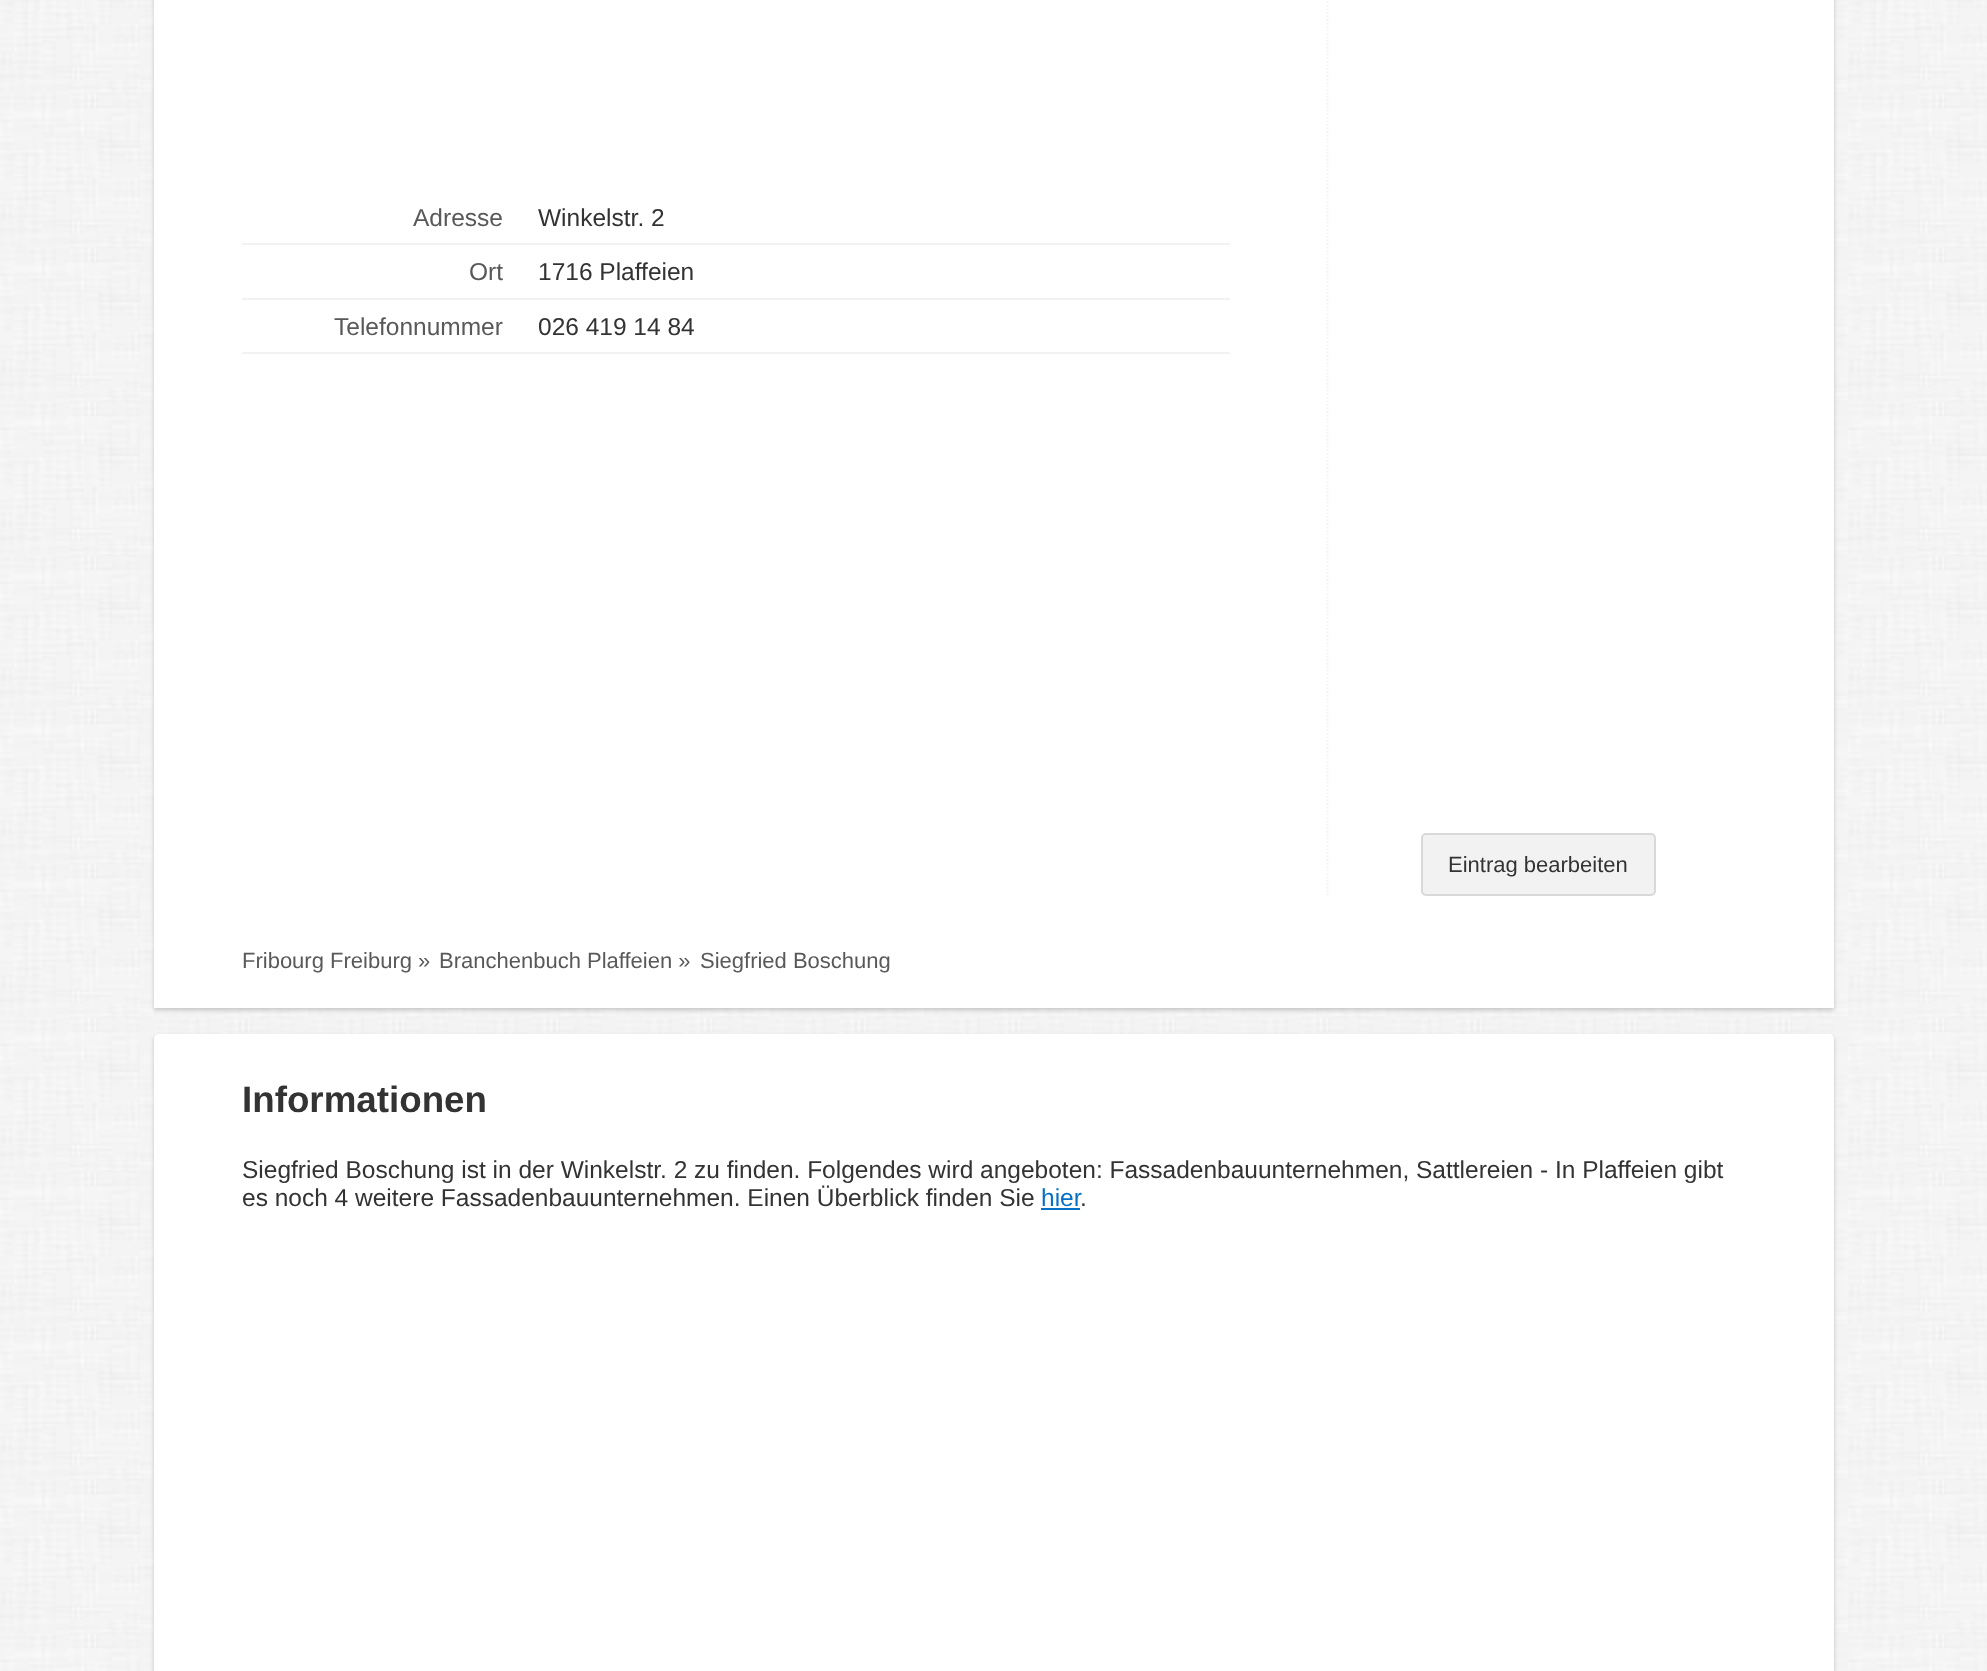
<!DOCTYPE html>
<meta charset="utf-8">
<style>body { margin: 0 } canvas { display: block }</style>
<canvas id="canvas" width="1987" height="1671"></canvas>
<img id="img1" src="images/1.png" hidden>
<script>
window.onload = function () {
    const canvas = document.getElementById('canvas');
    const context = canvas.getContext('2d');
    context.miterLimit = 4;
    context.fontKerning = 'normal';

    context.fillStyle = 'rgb(255, 255, 255)';
    context.fillRect(0, 0, 1987, 1671);
    context.drawImage(document.getElementById('img1'), 0, 0, 1987, 1671);
    context.fillStyle = 'rgba(0, 0, 0, 0.2)';
    context.filter = 'blur(2px)';
    context.beginPath();
    context.rect(154, -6, 1680, 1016);
    context.fill();
    context.filter = 'none';
    context.fillStyle = 'rgb(255, 255, 255)';
    context.fillRect(154, 0, 1680, 1008);
    context.beginPath();
    context.moveTo(1327.5, -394);
    context.lineTo(1327.5, 896);
    context.strokeStyle = 'rgb(242, 242, 242)';
    context.lineWidth = 1.8;
    context.setLineDash([1.75, 1.75]);
    context.stroke();
    context.fillStyle = 'rgb(242, 242, 242)';
    context.fillRect(242, 243, 988, 2);
    context.fillRect(242, 298, 988, 2);
    context.fillRect(242, 352, 988, 2);
    context.beginPath();
    context.roundRect(1422, 834, 233, 61, 4);
    context.fill();
    context.strokeStyle = 'rgb(217, 217, 217)';
    context.lineWidth = 2;
    context.setLineDash([]);
    context.stroke();
    context.fillStyle = 'rgba(0, 0, 0, 0.2)';
    context.filter = 'blur(2px)';
    context.beginPath();
    context.roundRect(154, 1036, 1680, 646, 5);
    context.fill();
    context.filter = 'none';
    context.fillStyle = 'rgb(255, 255, 255)';
    context.beginPath();
    context.moveTo(159, 1034);
    context.lineTo(1829, 1034);
    context.bezierCurveTo(1832, 1034, 1834, 1036, 1834, 1039);
    context.lineTo(1834, 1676);
    context.lineTo(154, 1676);
    context.lineTo(154, 1039);
    context.bezierCurveTo(154, 1036, 156, 1034, 159, 1034);
    context.closePath();
    context.fill();
    context.fillStyle = 'rgb(6, 112, 198)';
    context.fillRect(1041, 1208, 39, 2);
    context.font = '24.5px Liberation Sans';
    context.fillStyle = 'rgb(89, 89, 89)';
    context.fillText('Adresse', 413, 226);
    context.fillStyle = 'rgb(51, 51, 51)';
    context.fillText('Winkelstr. 2', 538, 226);
    context.fillStyle = 'rgb(89, 89, 89)';
    context.fillText('Ort', 469, 280);
    context.fillStyle = 'rgb(51, 51, 51)';
    context.fillText('1716 Plaffeien', 538, 280);
    context.fillStyle = 'rgb(89, 89, 89)';
    context.fillText('Telefonnummer', 334, 335);
    context.fillStyle = 'rgb(51, 51, 51)';
    context.fillText('026 419 14 84', 538, 335);
    context.font = '22px Liberation Sans';
    context.fillText('Eintrag bearbeiten', 1448, 872);
    context.fillStyle = 'rgb(89, 89, 89)';
    context.fillText('Fribourg Freiburg »', 242, 968);
    context.fillText('Branchenbuch Plaffeien »', 439, 968);
    context.fillText('Siegfried Boschung', 700, 968);
    context.font = 'bold 36.75px Liberation Sans';
    context.fillStyle = 'rgb(51, 51, 51)';
    context.fillText('Informationen', 242, 1112);
    context.font = '24.5px Liberation Sans';
    context.fillText('Siegfried Boschung ist in der Winkelstr. 2 zu finden. Folgendes wird angeboten: Fassadenbauunternehmen, Sattlereien - In Plaffeien gibt', 242, 1178);
    context.fillText('es noch 4 weitere Fassadenbauunternehmen. Einen Überblick finden Sie', 242, 1206);
    context.fillStyle = 'rgb(6, 112, 198)';
    context.fillText('hier', 1041, 1206);
    context.fillStyle = 'rgb(51, 51, 51)';
    context.fillText('.', 1080, 1206);
};
</script>
